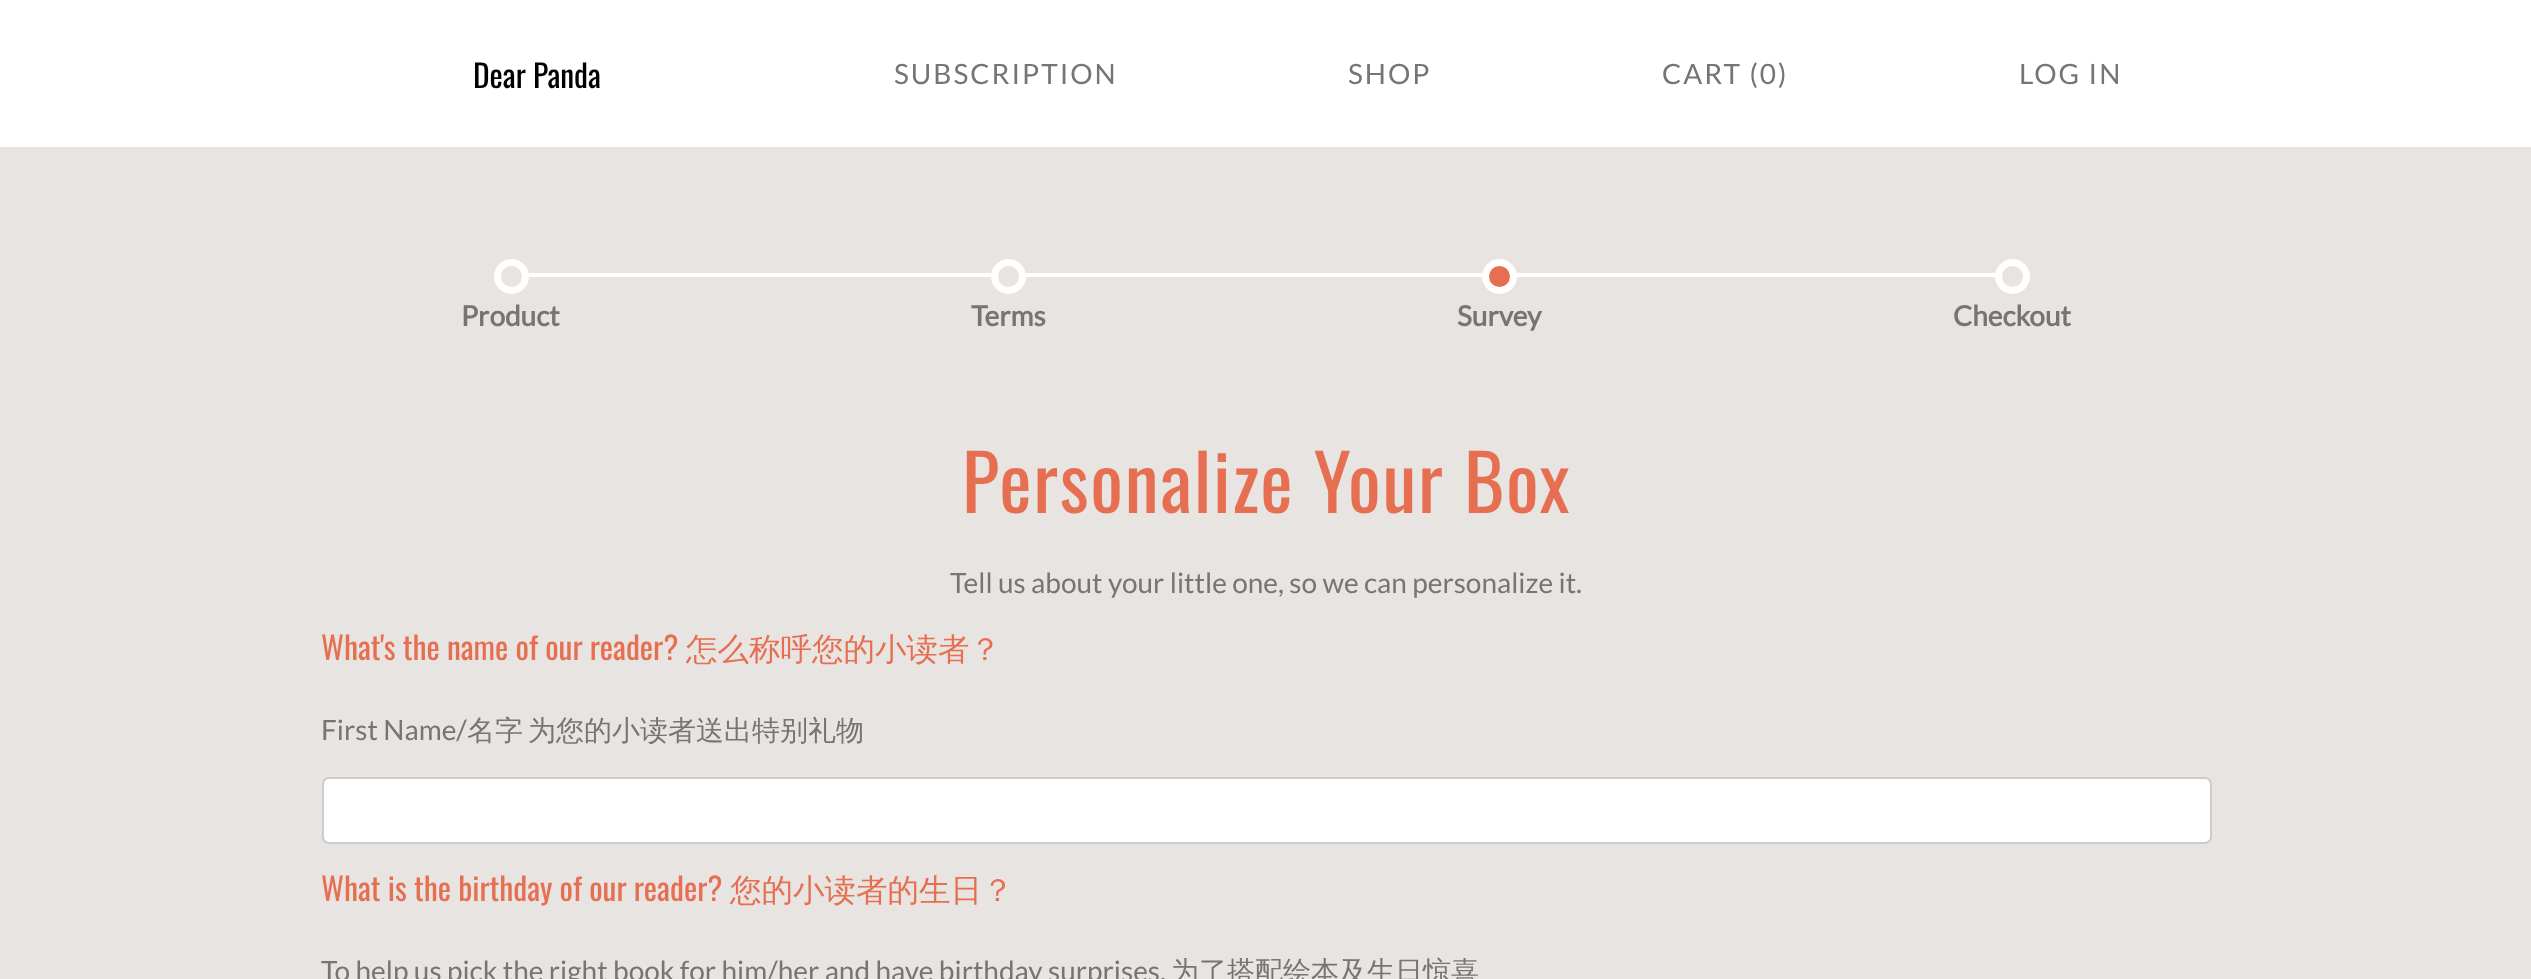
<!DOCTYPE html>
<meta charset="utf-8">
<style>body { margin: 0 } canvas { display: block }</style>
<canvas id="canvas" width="2531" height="979"></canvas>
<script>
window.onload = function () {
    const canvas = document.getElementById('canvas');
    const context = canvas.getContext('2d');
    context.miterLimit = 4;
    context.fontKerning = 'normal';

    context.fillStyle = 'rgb(255, 255, 255)';
    context.fillRect(0, 0, 2531, 979);
    context.fillStyle = 'rgb(232, 228, 226)';
    context.fillRect(0, 147, 2531, 832);
    context.fillStyle = 'rgb(255, 255, 255)';
    context.fillRect(528, 273, 1468, 4);
    context.fillStyle = 'rgb(232, 228, 226)';
    context.beginPath();
    context.arc(511.5, 276.5, 14, 0, 2 * Math.PI);
    context.fill();
    context.strokeStyle = 'rgb(255, 255, 255)';
    context.lineWidth = 7;
    context.stroke();
    context.beginPath();
    context.arc(1008.5, 276.5, 14, 0, 2 * Math.PI);
    context.fill();
    context.stroke();
    context.fillStyle = 'rgb(231, 111, 81)';
    context.beginPath();
    context.arc(1499.5, 276.5, 14, 0, 2 * Math.PI);
    context.fill();
    context.stroke();
    context.fillStyle = 'rgb(232, 228, 226)';
    context.beginPath();
    context.arc(2012.5, 276.5, 14, 0, 2 * Math.PI);
    context.fill();
    context.stroke();
    context.fillStyle = 'rgb(255, 255, 255)';
    context.beginPath();
    context.roundRect(323, 778, 1888, 65, 6);
    context.fill();
    context.strokeStyle = 'rgb(204, 204, 204)';
    context.lineWidth = 2;
    context.stroke();
    context.font = '31.5px Oswald';
    context.fillStyle = 'rgb(0, 0, 0)';
    context.fillText('Dear Panda', 473, 88);
    context.letterSpacing = '2px';
    context.font = '28px Lato';
    context.fillStyle = 'rgb(117, 117, 117)';
    context.fillText('SUBSCRIPTION', 894, 84);
    context.fillText('SHOP', 1348, 84);
    context.fillText('CART (0)', 1662, 84);
    context.fillText('LOG IN', 2019, 84);
    context.letterSpacing = '0px';
    context.font = 'bold 28px Lato';
    context.fillText('Product', 461, 326);
    context.fillText('Terms', 971, 326);
    context.fillText('Survey', 1457, 326);
    context.fillText('Checkout', 1953, 326);
    context.letterSpacing = '1.75px';
    context.font = '77px Oswald';
    context.fillStyle = 'rgb(231, 111, 81)';
    context.fillText('Personalize Your Box', 962, 513);
    context.letterSpacing = '0px';
    context.font = '28px Lato';
    context.fillStyle = 'rgb(117, 117, 117)';
    context.fillText('Tell us about your little one, so we can personalize it.', 950, 593);
    context.font = '31.5px Oswald';
    context.fillStyle = 'rgb(231, 111, 81)';
    context.fillText('What\'s the name of our reader?', 321, 660);
    context.font = '500 31.5px WenQuanYi Zen Hei';
    context.fillText('怎么称呼您的小读者？', 686, 660);
    context.font = '28px Lato';
    context.fillStyle = 'rgb(117, 117, 117)';
    context.fillText('First Name/', 321, 740);
    context.font = '500 28px WenQuanYi Zen Hei';
    context.fillText('名字', 467, 740);
    context.fillText('为您的小读者送出特别礼物', 528, 740);
    context.font = '31.5px Oswald';
    context.fillStyle = 'rgb(231, 111, 81)';
    context.fillText('What is the birthday of our reader?', 321, 901);
    context.font = '500 31.5px WenQuanYi Zen Hei';
    context.fillText('您的小读者的生日？', 730, 901);
    context.font = '28px Lato';
    context.fillStyle = 'rgb(117, 117, 117)';
    context.fillText('To help us pick the right book for him/her and have birthday surprises.', 321, 981);
    context.font = '500 28px WenQuanYi Zen Hei';
    context.fillText('为了搭配绘本及生日惊喜', 1171, 981);
};
</script>
